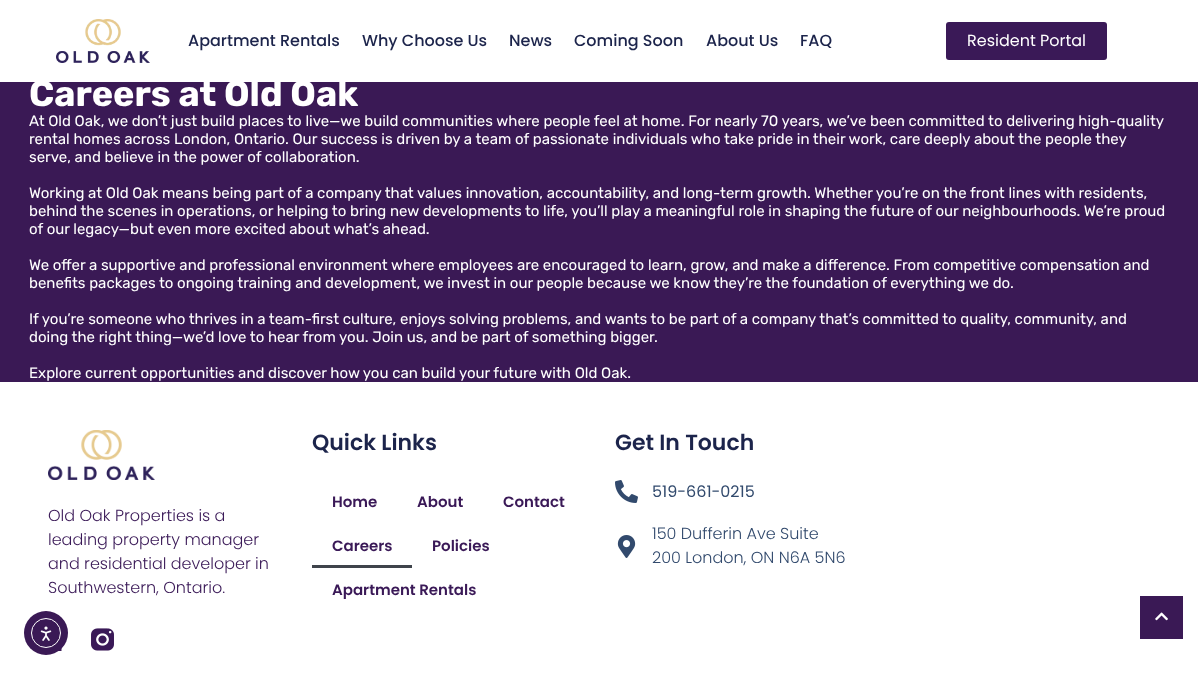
<!DOCTYPE html>
<meta charset="utf-8">
<style>body { margin: 0 } canvas { display: block }</style>
<canvas id="canvas" width="1198" height="679"></canvas>
<img id="img1" src="images/1.png" hidden>
<img id="img2" src="images/2.png" hidden>
<img id="img3" src="images/3.png" hidden>
<img id="img4" src="images/4.png" hidden>
<img id="img5" src="images/5.png" hidden>
<img id="img6" src="images/6.png" hidden>
<img id="img7" src="images/7.png" hidden>
<img id="img8" src="images/8.png" hidden>
<script>
window.onload = function () {
    const canvas = document.getElementById('canvas');
    const context = canvas.getContext('2d');
    context.miterLimit = 4;
    context.fontKerning = 'normal';

    context.fillStyle = 'rgb(58, 25, 85)';
    context.fillRect(0, 0, 1198, 679);
    context.fillStyle = 'rgb(255, 255, 255)';
    context.fillRect(0, 0, 1198, 82);
    context.drawImage(document.getElementById('img1'), 56, 19, 94, 44);
    context.fillStyle = 'rgb(58, 25, 87)';
    context.beginPath();
    context.roundRect(946, 22, 161, 38, 3);
    context.fill();
    context.fillStyle = 'rgb(255, 255, 255)';
    context.fillRect(0, 382, 1198, 297);
    context.drawImage(document.getElementById('img2'), 48, 430, 107, 50);
    context.drawImage(document.getElementById('img3'), 58, 648, 4, 3);
    context.drawImage(document.getElementById('img4'), 91, 628, 23, 23);
    context.fillStyle = 'rgb(63, 68, 75)';
    context.fillRect(312, 565, 100, 3);
    context.drawImage(document.getElementById('img5'), 615, 480, 23, 23);
    context.drawImage(document.getElementById('img6'), 617, 535, 19, 23);
    context.fillStyle = 'rgb(58, 25, 85)';
    context.beginPath();
    context.arc(46, 633, 22, 0, 2 * Math.PI);
    context.fill();
    context.beginPath();
    context.arc(46, 633, 14.5, 0, 2 * Math.PI);
    context.strokeStyle = 'rgb(255, 255, 255)';
    context.stroke();
    context.drawImage(document.getElementById('img7'), 40, 626, 12, 15);
    context.fillRect(1140, 596, 43, 43);
    context.drawImage(document.getElementById('img8'), 1155, 612, 13, 9);
    context.font = '500 16px Poppins';
    context.fillStyle = 'rgb(28, 36, 75)';
    context.fillText('Apartment Rentals', 188, 46);
    context.fillText('Why Choose Us', 362, 46);
    context.fillText('News', 509, 46);
    context.fillText('Coming Soon', 574, 46);
    context.fillText('About Us', 706, 46);
    context.fillText('FAQ', 800, 46);
    context.font = '16px Poppins';
    context.fillStyle = 'rgb(255, 255, 255)';
    context.fillText('Resident Portal', 967, 46);
    context.font = 'bold 36px Rubik';
    context.fillText('Careers at Old Oak', 29, 106);
    context.font = '15px Rubik';
    context.fillText('At Old Oak, we don’t just build places to live—we build communities where people feel at home. For nearly 70 years, we’ve been committed to delivering high-quality', 29, 126);
    context.fillText('rental homes across London, Ontario. Our success is driven by a team of passionate individuals who take pride in their work, care deeply about the people they', 29, 144);
    context.fillText('serve, and believe in the power of collaboration.', 29, 162);
    context.fillText('Working at Old Oak means being part of a company that values innovation, accountability, and long-term growth. Whether you’re on the front lines with residents,', 29, 198);
    context.fillText('behind the scenes in operations, or helping to bring new developments to life, you’ll play a meaningful role in shaping the future of our neighbourhoods. We’re proud', 29, 216);
    context.fillText('of our legacy—but even more excited about what’s ahead.', 29, 234);
    context.fillText('We offer a supportive and professional environment where employees are encouraged to learn, grow, and make a difference. From competitive compensation and', 29, 270);
    context.fillText('benefits packages to ongoing training and development, we invest in our people because we know they’re the foundation of everything we do.', 29, 288);
    context.fillText('If you’re someone who thrives in a team-first culture, enjoys solving problems, and wants to be part of a company that’s committed to quality, community, and', 29, 324);
    context.fillText('doing the right thing—we’d love to hear from you. Join us, and be part of something bigger.', 29, 342);
    context.fillText('Explore current opportunities and discover how you can build your future with Old Oak.', 29, 378);
    context.font = '300 16px Poppins';
    context.fillStyle = 'rgb(58, 25, 87)';
    context.fillText('Old Oak Properties is a', 48, 521);
    context.fillText('leading property manager', 48, 545);
    context.fillText('and residential developer in', 48, 569);
    context.fillText('Southwestern, Ontario.', 48, 593);
    context.font = '600 22px Poppins';
    context.fillStyle = 'rgb(28, 36, 75)';
    context.fillText('Quick Links', 312, 450);
    context.font = '600 15px Poppins';
    context.fillStyle = 'rgb(58, 25, 87)';
    context.fillText('Home', 332, 507);
    context.fillText('About', 417, 507);
    context.fillText('Contact', 503, 507);
    context.fillText('Careers', 332, 551);
    context.fillText('Policies', 432, 551);
    context.fillText('Apartment Rentals', 332, 595);
    context.font = '600 22px Poppins';
    context.fillStyle = 'rgb(28, 36, 75)';
    context.fillText('Get In Touch', 615, 450);
    context.font = '16px Poppins';
    context.fillStyle = 'rgb(50, 74, 109)';
    context.fillText('519-661-0215', 652, 497);
    context.font = '300 16px Poppins';
    context.fillText('150 Dufferin Ave Suite', 652, 539);
    context.fillText('200 London, ON N6A 5N6', 652, 563);
};
</script>
